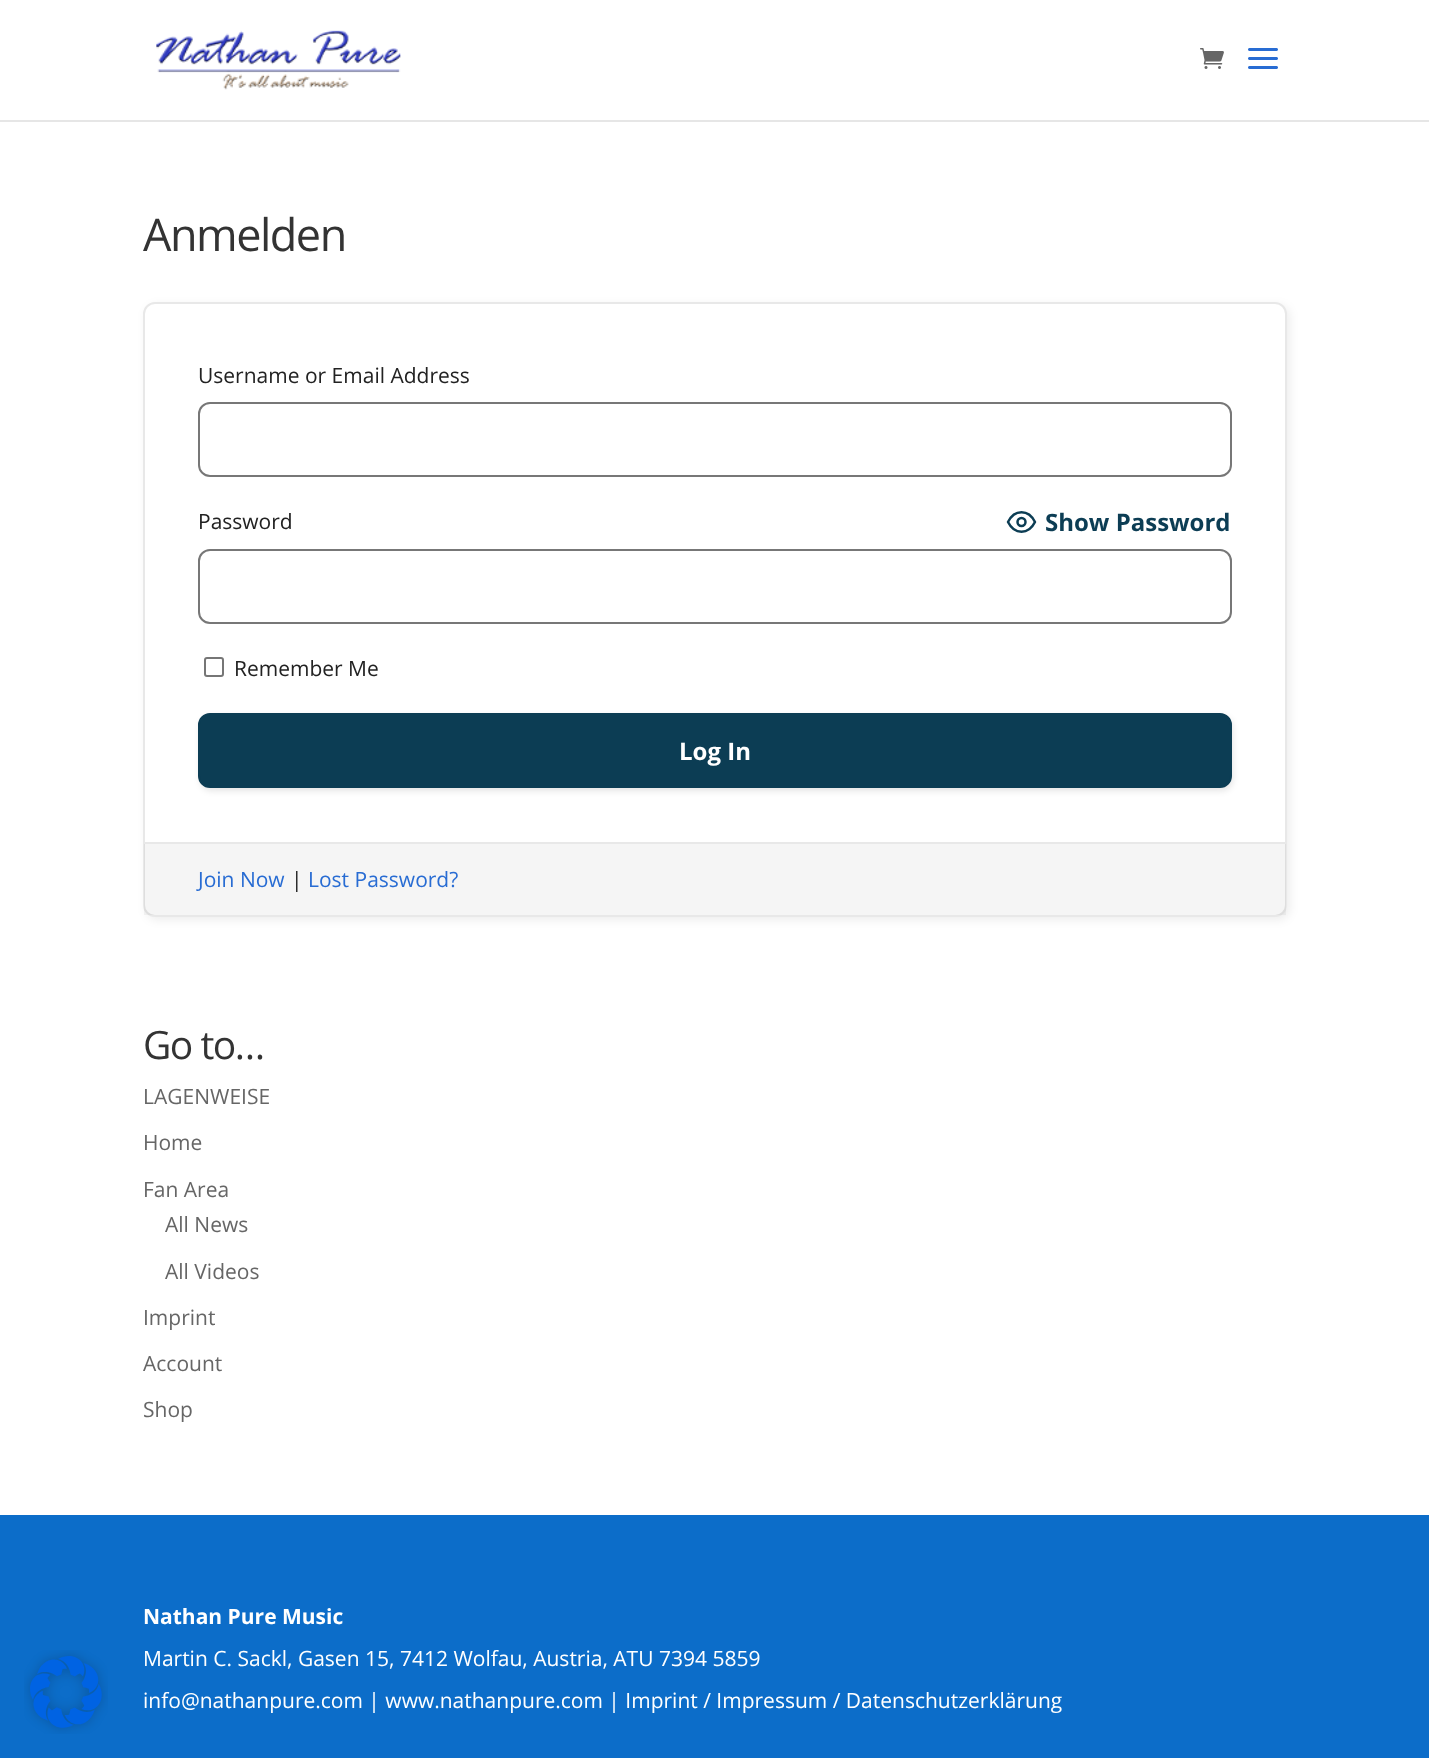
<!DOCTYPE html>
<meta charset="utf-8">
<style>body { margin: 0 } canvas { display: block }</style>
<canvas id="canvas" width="1429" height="1758"></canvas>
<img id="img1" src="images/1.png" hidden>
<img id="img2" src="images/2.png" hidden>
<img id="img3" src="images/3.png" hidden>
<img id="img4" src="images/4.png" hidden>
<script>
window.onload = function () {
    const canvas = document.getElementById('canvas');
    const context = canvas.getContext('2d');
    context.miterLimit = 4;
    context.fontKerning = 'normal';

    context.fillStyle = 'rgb(255, 255, 255)';
    context.fillRect(0, 0, 1429, 1758);
    context.fillStyle = 'rgb(12, 109, 201)';
    context.fillRect(0, 1515, 1429, 243);
    context.drawImage(document.getElementById('img1'), 24, 1650, 84, 84);
    context.fillStyle = 'rgb(230, 230, 230)';
    context.beginPath();
    context.moveTo(0, 120);
    context.lineTo(0, 122);
    context.lineTo(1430, 122);
    context.lineTo(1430, 2);
    context.lineTo(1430, 120);
    context.closePath();
    context.fill();
    context.drawImage(document.getElementById('img2'), 156, 30, 245, 60);
    context.drawImage(document.getElementById('img3'), 1200, 48, 24, 21);
    context.drawImage(document.getElementById('img4'), 1248, 48, 30, 21);
    context.fillStyle = 'rgba(0, 0, 0, 0.07)';
    context.filter = 'blur(5px)';
    context.beginPath();
    context.roundRect(146, 305, 1144, 615, 12);
    context.fill();
    context.filter = 'none';
    context.fillStyle = 'rgb(255, 255, 255)';
    context.beginPath();
    context.roundRect(144, 303, 1142, 613, 11);
    context.fill();
    context.strokeStyle = 'rgb(232, 232, 232)';
    context.lineWidth = 2;
    context.stroke();
    context.beginPath();
    context.roundRect(199, 403, 1032, 73, 11);
    context.strokeStyle = 'rgb(119, 119, 119)';
    context.stroke();
    context.beginPath();
    context.moveTo(1008, 522);
    context.bezierCurveTo(1014.5, 509, 1028.5, 509, 1035, 522);
    context.bezierCurveTo(1028.5, 535, 1014.5, 535, 1008, 522);
    context.closePath();
    context.strokeStyle = 'rgb(12, 61, 84)';
    context.lineWidth = 2.5;
    context.lineCap = 'round';
    context.lineJoin = 'round';
    context.stroke();
    context.beginPath();
    context.arc(1021.5, 522, 4, 0, 2 * Math.PI);
    context.stroke();
    context.beginPath();
    context.roundRect(199, 550, 1032, 73, 11);
    context.strokeStyle = 'rgb(119, 119, 119)';
    context.lineWidth = 2;
    context.lineJoin = 'miter';
    context.stroke();
    context.beginPath();
    context.roundRect(205, 658, 18, 18, 2);
    context.strokeStyle = 'rgb(118, 118, 118)';
    context.stroke();
    context.fillStyle = 'rgba(0, 0, 0, 0.1)';
    context.filter = 'blur(3px)';
    context.beginPath();
    context.roundRect(200, 716, 1033, 75, 12);
    context.fill();
    context.filter = 'none';
    context.fillStyle = 'rgb(12, 61, 84)';
    context.beginPath();
    context.roundRect(199, 714, 1032, 73, 11);
    context.fill();
    context.strokeStyle = 'rgb(12, 61, 84)';
    context.stroke();
    context.fillStyle = 'rgba(0, 0, 0, 0.04)';
    context.fillRect(144, 844, 1142, 71);
    context.fillStyle = 'rgb(232, 232, 232)';
    context.fillRect(144, 842, 1142, 2);
    context.letterSpacing = '-1.5px';
    context.font = '45px Open Sans';
    context.fillStyle = 'rgb(51, 51, 51)';
    context.fillText('Anmelden', 143, 251);
    context.letterSpacing = '0px';
    context.font = '21px Open Sans';
    context.fillStyle = 'rgb(34, 34, 34)';
    context.fillText('Username or Email Address', 198, 383);
    context.fillText('Password', 198, 529);
    context.font = 'bold 24px Open Sans';
    context.fillStyle = 'rgb(12, 61, 84)';
    context.fillText('Show Password', 1045, 531);
    context.font = '21px Open Sans';
    context.fillStyle = 'rgb(34, 34, 34)';
    context.fillText('Remember Me', 234, 676);
    context.font = 'bold 24px Open Sans';
    context.fillStyle = 'rgb(255, 255, 255)';
    context.fillText('Log In', 679, 760);
    context.font = '21px Open Sans';
    context.fillStyle = 'rgb(40, 108, 211)';
    context.fillText('Join Now', 198, 887);
    context.fillStyle = 'rgb(34, 34, 34)';
    context.fillText('|', 291, 887);
    context.fillStyle = 'rgb(40, 108, 211)';
    context.fillText('Lost Password?', 308, 887);
    context.letterSpacing = '-1.5px';
    context.font = '39px Open Sans';
    context.fillStyle = 'rgb(51, 51, 51)';
    context.fillText('Go to…', 143, 1059);
    context.letterSpacing = '0px';
    context.font = '21px Open Sans';
    context.fillStyle = 'rgb(102, 102, 102)';
    context.fillText('LAGENWEISE', 143, 1104);
    context.fillText('Home', 143, 1150);
    context.fillText('Fan Area', 143, 1197);
    context.fillText('All News', 165, 1232);
    context.fillText('All Videos', 165, 1279);
    context.fillText('Imprint', 143, 1325);
    context.fillText('Account', 143, 1371);
    context.fillText('Shop', 143, 1417);
    context.font = 'bold 21px Open Sans';
    context.fillStyle = 'rgb(255, 255, 255)';
    context.fillText('Nathan Pure Music', 143, 1624);
    context.font = '21px Open Sans';
    context.fillText('Martin C. Sackl, Gasen 15, 7412 Wolfau, Austria, ATU 7394 5859', 143, 1666);
    context.fillText('info@nathanpure.com | www.nathanpure.com | Imprint / Impressum / Datenschutzerklärung', 143, 1708);
};
</script>
